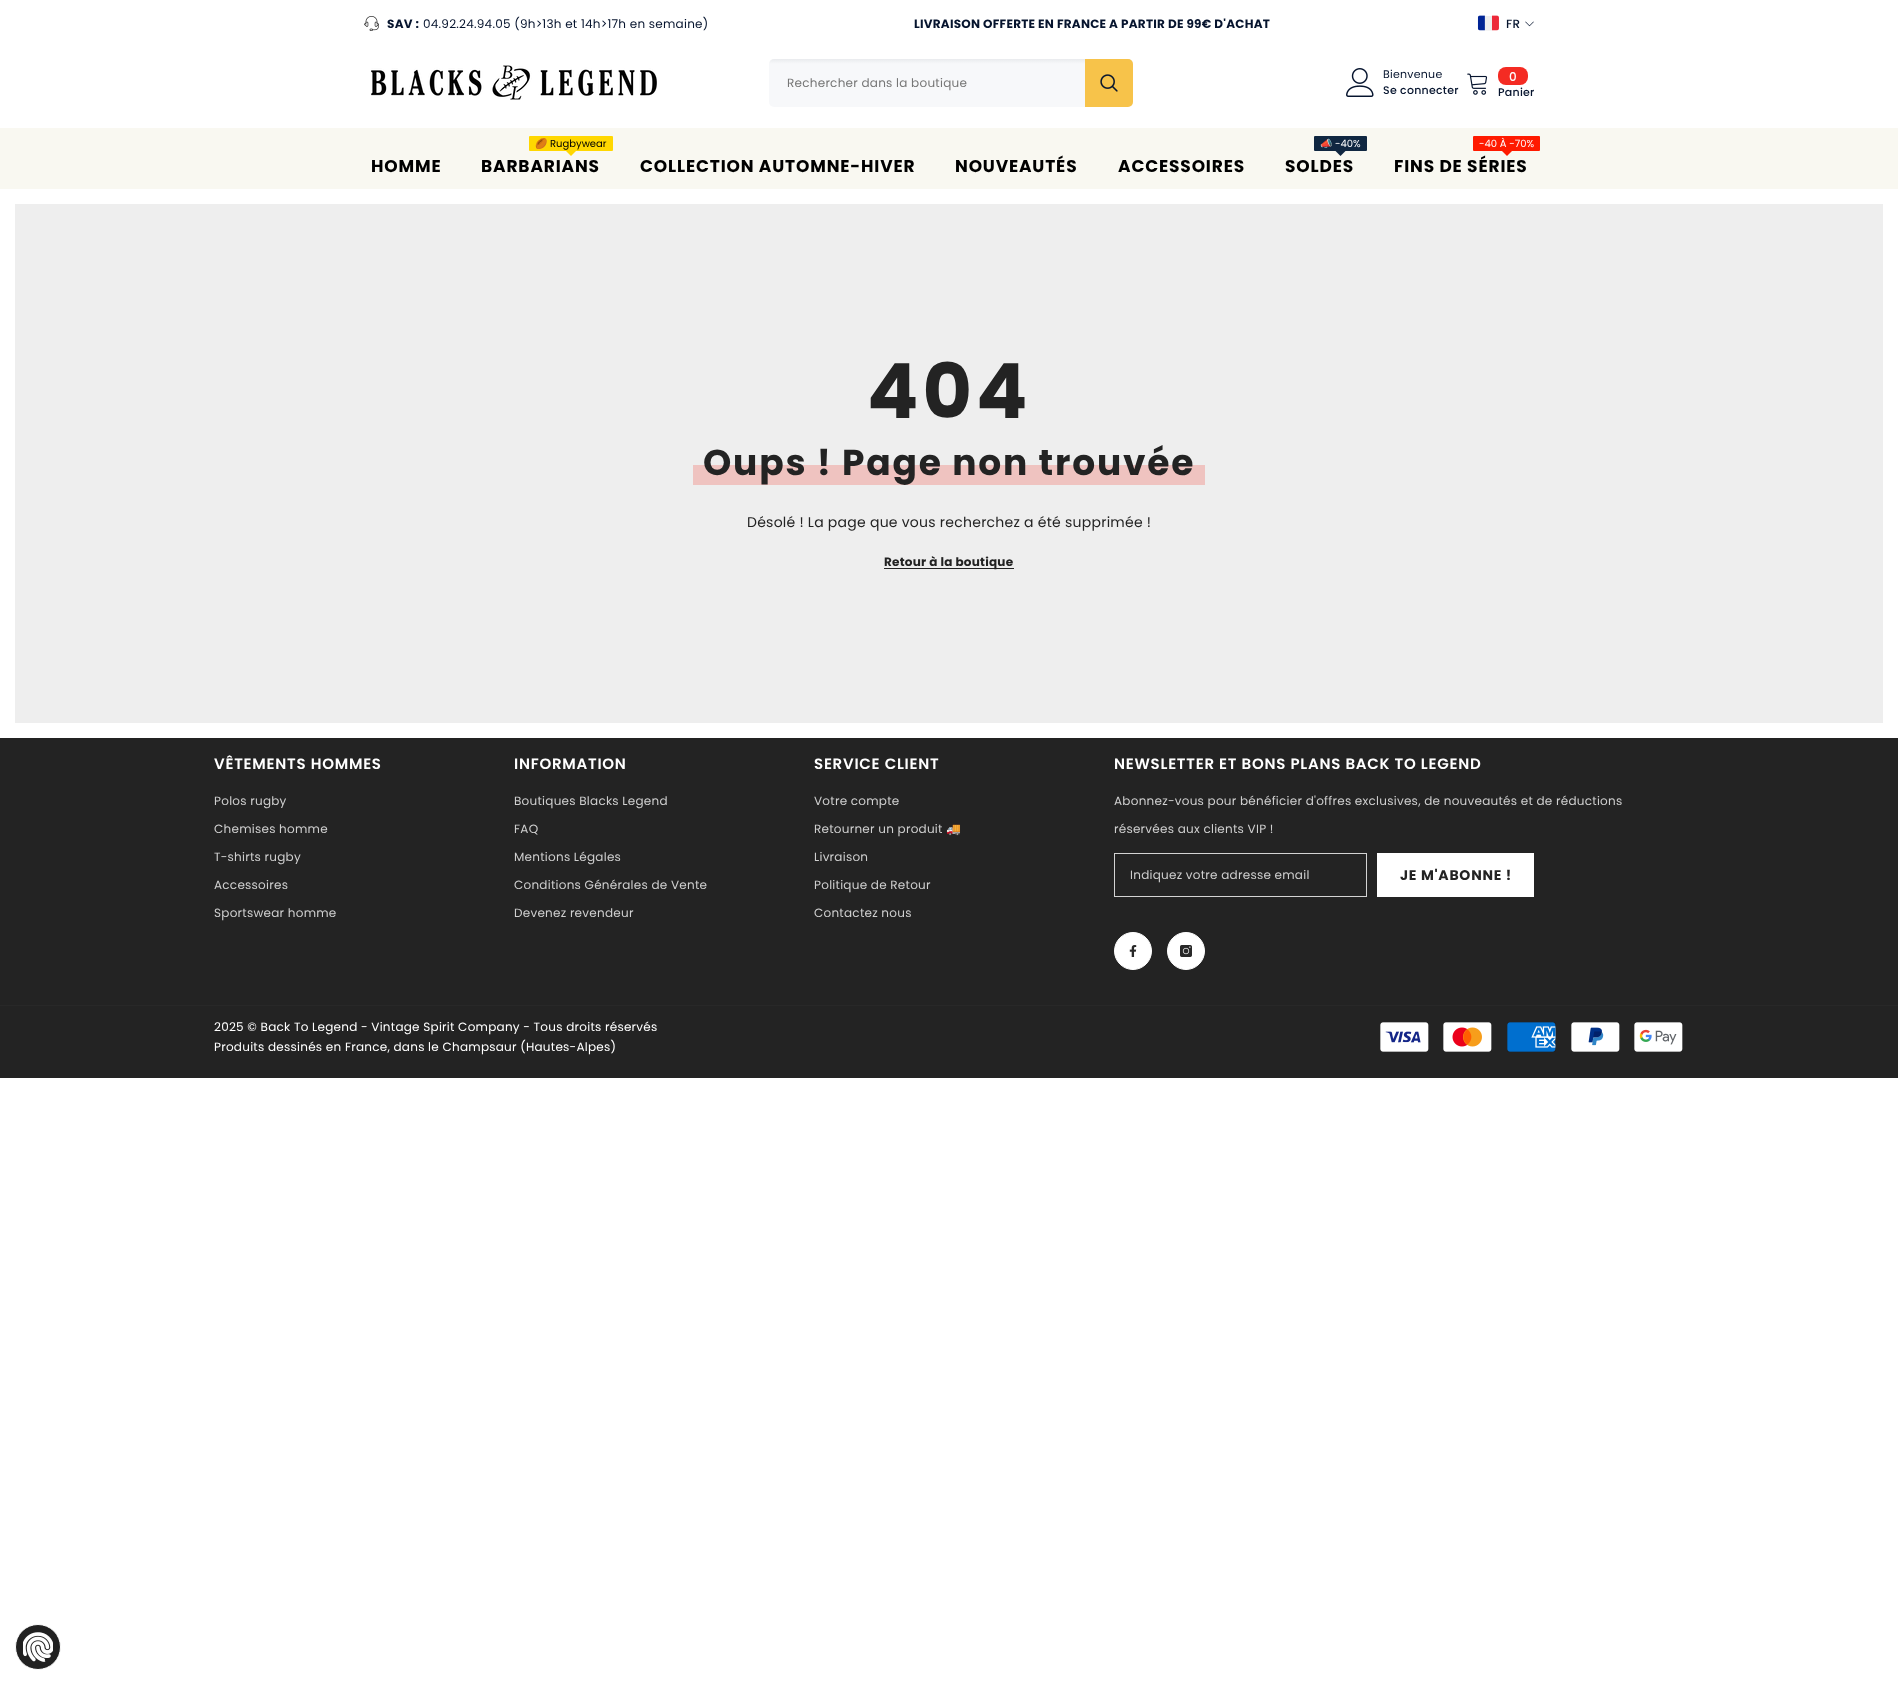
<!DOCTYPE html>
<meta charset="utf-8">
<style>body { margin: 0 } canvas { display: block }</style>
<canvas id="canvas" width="1898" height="1685"></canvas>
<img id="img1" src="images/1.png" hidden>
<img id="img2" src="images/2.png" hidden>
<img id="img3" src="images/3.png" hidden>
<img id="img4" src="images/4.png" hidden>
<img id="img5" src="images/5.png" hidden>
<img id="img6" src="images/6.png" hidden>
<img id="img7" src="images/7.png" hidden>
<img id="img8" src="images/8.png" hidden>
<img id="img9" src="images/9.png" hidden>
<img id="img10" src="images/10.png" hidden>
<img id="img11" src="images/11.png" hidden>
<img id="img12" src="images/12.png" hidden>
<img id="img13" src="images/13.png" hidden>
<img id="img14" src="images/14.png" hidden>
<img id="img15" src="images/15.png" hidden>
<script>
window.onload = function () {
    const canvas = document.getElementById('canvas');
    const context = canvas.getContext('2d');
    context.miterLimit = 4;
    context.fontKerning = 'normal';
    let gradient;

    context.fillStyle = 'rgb(255, 255, 255)';
    context.fillRect(0, 0, 1898, 1685);
    context.drawImage(document.getElementById('img1'), 364, 16, 15, 15);
    context.drawImage(document.getElementById('img2'), 1477, 15, 22, 16);
    context.drawImage(document.getElementById('img3'), 1525, 21, 9, 6);
    context.drawImage(document.getElementById('img4'), 371, 65, 286, 35);
    gradient = context.createLinearGradient(951, 59, 951, 107);
    gradient.addColorStop(0, 'rgb(233, 235, 238)');
    gradient.addColorStop(0.1, 'rgb(247, 248, 250)');
    gradient.addColorStop(1, 'rgb(247, 248, 250)');
    context.fillStyle = gradient;
    context.beginPath();
    context.roundRect(769, 59, 364, 48, 5);
    context.fill();
    context.fillStyle = 'rgb(247, 195, 74)';
    context.beginPath();
    context.roundRect(1085, 59, 48, 48, [0, 5, 5, 0]);
    context.fill();
    context.drawImage(document.getElementById('img5'), 1100, 74, 18, 18);
    context.drawImage(document.getElementById('img6'), 1346, 68, 28, 29);
    context.drawImage(document.getElementById('img7'), 1467, 73, 21, 22);
    context.fillStyle = 'rgb(244, 43, 35)';
    context.beginPath();
    context.roundRect(1498, 67, 30, 18, 8);
    context.fill();
    context.fillStyle = 'rgb(249, 248, 241)';
    context.fillRect(0, 128, 1898, 61);
    context.fillStyle = 'rgb(255, 215, 0)';
    context.beginPath();
    context.roundRect(529, 136, 84, 15, 1);
    context.fill();
    context.beginPath();
    context.moveTo(566, 151);
    context.lineTo(576, 151);
    context.lineTo(571, 156);
    context.closePath();
    context.fill();
    context.fillStyle = 'rgb(16, 39, 65)';
    context.beginPath();
    context.roundRect(1314, 136, 53, 15, 1);
    context.fill();
    context.beginPath();
    context.moveTo(1335.5, 151);
    context.lineTo(1345.5, 151);
    context.lineTo(1340.5, 156);
    context.closePath();
    context.fill();
    context.fillStyle = 'rgb(255, 26, 0)';
    context.beginPath();
    context.roundRect(1473, 136, 67, 15, 1);
    context.fill();
    context.fillStyle = 'rgb(238, 238, 238)';
    context.fillRect(15, 204, 1868, 519);
    context.fillStyle = 'rgb(239, 195, 192)';
    context.fillRect(693, 465, 512, 20);
    context.fillStyle = 'rgb(35, 35, 35)';
    context.fillRect(884, 568, 130, 1);
    context.fillRect(0, 738, 1898, 267);
    context.strokeStyle = 'rgb(211, 211, 211)';
    context.strokeRect(1114.5, 853.5, 252, 43);
    context.fillStyle = 'rgb(255, 255, 255)';
    context.fillRect(1377, 853, 157, 44);
    context.beginPath();
    context.arc(1133, 951, 18.5, 0, 2 * Math.PI);
    context.fill();
    context.strokeStyle = 'rgb(255, 255, 255)';
    context.stroke();
    context.drawImage(document.getElementById('img8'), 1129, 945, 8, 12);
    context.beginPath();
    context.arc(1186, 951, 18.5, 0, 2 * Math.PI);
    context.fill();
    context.stroke();
    context.drawImage(document.getElementById('img9'), 1180, 945, 12, 12);
    context.fillStyle = 'rgb(35, 35, 35)';
    context.fillRect(0, 1006, 1898, 72);
    context.fillStyle = 'rgb(40, 40, 40)';
    context.fillRect(0, 1005, 1898, 1);
    context.drawImage(document.getElementById('img10'), 1380, 1022, 49, 30);
    context.drawImage(document.getElementById('img11'), 1443, 1022, 49, 30);
    context.drawImage(document.getElementById('img12'), 1507, 1022, 49, 30);
    context.drawImage(document.getElementById('img13'), 1571, 1022, 49, 30);
    context.drawImage(document.getElementById('img14'), 1634, 1022, 49, 30);
    context.fillStyle = 'rgb(33, 33, 33)';
    context.beginPath();
    context.arc(38, 1647, 22.5, 0, 2 * Math.PI);
    context.fill();
    context.strokeStyle = 'rgb(252, 252, 252)';
    context.stroke();
    context.drawImage(document.getElementById('img15'), 23, 1632, 30, 30);
    context.letterSpacing = '0.25px';
    context.font = 'bold 12px Poppins';
    context.fillStyle = 'rgb(6, 20, 46)';
    context.fillText('SAV :', 387, 28);
    context.font = '12px Poppins';
    context.fillText('04.92.24.94.05 (9h>13h et 14h>17h en semaine)', 423, 28);
    context.font = 'bold 12px Poppins';
    context.fillText('LIVRAISON OFFERTE EN FRANCE A PARTIR DE 99€ D\'ACHAT', 914, 28);
    context.font = '500 12px Poppins';
    context.fillText('FR', 1506, 28);
    context.font = '12px Poppins';
    context.fillStyle = 'rgb(118, 118, 118)';
    context.fillText('Rechercher dans la boutique', 787, 87);
    context.font = '11px Poppins';
    context.fillStyle = 'rgb(6, 20, 46)';
    context.fillText('Bienvenue', 1383, 78);
    context.font = '500 11px Poppins';
    context.fillText('Se connecter', 1383, 94);
    context.letterSpacing = '0px';
    context.font = '500 12px Poppins';
    context.fillStyle = 'rgb(255, 255, 255)';
    context.fillText('0', 1509, 81);
    context.letterSpacing = '0.25px';
    context.font = '500 11px Poppins';
    context.fillStyle = 'rgb(6, 20, 46)';
    context.fillText('Panier', 1498, 96);
    context.letterSpacing = '0.85px';
    context.font = 'bold 17px Poppins';
    context.fillStyle = 'rgb(0, 0, 0)';
    context.fillText('HOMME', 371, 172);
    context.letterSpacing = '0px';
    context.font = '10px Noto Color Emoji';
    context.fillText('🏉', 535, 147);
    context.font = '10px Poppins';
    context.fillText('Rugbywear', 550, 147);
    context.letterSpacing = '0.85px';
    context.font = 'bold 17px Poppins';
    context.fillText('BARBARIANS', 481, 172);
    context.fillText('COLLECTION AUTOMNE-HIVER', 640, 172);
    context.fillText('NOUVEAUTÉS', 955, 172);
    context.fillText('ACCESSOIRES', 1118, 172);
    context.letterSpacing = '0px';
    context.font = '10px Noto Color Emoji';
    context.fillStyle = 'rgb(255, 255, 255)';
    context.fillText('📣', 1320, 147);
    context.font = '10px Poppins';
    context.fillText('-40%', 1335, 147);
    context.letterSpacing = '0.85px';
    context.font = 'bold 17px Poppins';
    context.fillStyle = 'rgb(0, 0, 0)';
    context.fillText('SOLDES', 1285, 172);
    context.letterSpacing = '0px';
    context.font = '10px Poppins';
    context.fillStyle = 'rgb(255, 255, 255)';
    context.fillText('-40 À -70%', 1479, 147);
    context.letterSpacing = '0.85px';
    context.font = 'bold 17px Poppins';
    context.fillStyle = 'rgb(0, 0, 0)';
    context.fillText('FINS DE SÉRIES', 1394, 172);
    context.fillStyle = 'rgb(255, 26, 0)';
    context.beginPath();
    context.moveTo(1502, 151);
    context.lineTo(1512, 151);
    context.lineTo(1507, 156);
    context.closePath();
    context.fill();
    context.letterSpacing = '4px';
    context.font = 'bold 76px Poppins';
    context.fillStyle = 'rgb(35, 35, 35)';
    context.fillText('404', 867, 418);
    context.letterSpacing = '1.8px';
    context.font = 'bold 36px Poppins';
    context.fillText('Oups ! Page non trouvée', 703, 475);
    context.letterSpacing = '0.25px';
    context.font = '14px Poppins';
    context.fillText('Désolé ! La page que vous recherchez a été supprimée !', 747, 527);
    context.font = 'bold 12px Poppins';
    context.fillText('Retour à la boutique', 884, 566);
    context.letterSpacing = '0.75px';
    context.font = '600 15px Poppins';
    context.fillStyle = 'rgb(255, 255, 255)';
    context.fillText('VÊTEMENTS HOMMES', 214, 769);
    context.letterSpacing = '0.25px';
    context.font = '12px Poppins';
    context.fillStyle = 'rgb(207, 207, 207)';
    context.fillText('Polos rugby', 214, 805);
    context.fillText('Chemises homme', 214, 833);
    context.fillText('T-shirts rugby', 214, 861);
    context.fillText('Accessoires', 214, 889);
    context.fillText('Sportswear homme', 214, 917);
    context.letterSpacing = '0.75px';
    context.font = '600 15px Poppins';
    context.fillStyle = 'rgb(255, 255, 255)';
    context.fillText('INFORMATION', 514, 769);
    context.letterSpacing = '0.25px';
    context.font = '12px Poppins';
    context.fillStyle = 'rgb(207, 207, 207)';
    context.fillText('Boutiques Blacks Legend', 514, 805);
    context.fillText('FAQ', 514, 833);
    context.fillText('Mentions Légales', 514, 861);
    context.fillText('Conditions Générales de Vente', 514, 889);
    context.fillText('Devenez revendeur', 514, 917);
    context.letterSpacing = '0.75px';
    context.font = '600 15px Poppins';
    context.fillStyle = 'rgb(255, 255, 255)';
    context.fillText('SERVICE CLIENT', 814, 769);
    context.letterSpacing = '0.25px';
    context.font = '12px Poppins';
    context.fillStyle = 'rgb(207, 207, 207)';
    context.fillText('Votre compte', 814, 805);
    context.fillText('Retourner un produit', 814, 833);
    context.font = '12px Noto Color Emoji';
    context.fillText('🚚', 946, 833);
    context.font = '12px Poppins';
    context.fillText('Livraison', 814, 861);
    context.fillText('Politique de Retour', 814, 889);
    context.fillText('Contactez nous', 814, 917);
    context.letterSpacing = '0.75px';
    context.font = '600 15px Poppins';
    context.fillStyle = 'rgb(255, 255, 255)';
    context.fillText('NEWSLETTER ET BONS PLANS BACK TO LEGEND', 1114, 769);
    context.letterSpacing = '0.25px';
    context.font = '12px Poppins';
    context.fillStyle = 'rgb(207, 207, 207)';
    context.fillText('Abonnez-vous pour bénéficier d\'offres exclusives, de nouveautés et de réductions', 1114, 805);
    context.fillText('réservées aux clients VIP !', 1114, 833);
    context.fillText('Indiquez votre adresse email', 1130, 879);
    context.letterSpacing = '0.75px';
    context.font = 'bold 14px Poppins';
    context.fillStyle = 'rgb(35, 35, 35)';
    context.fillText('JE M\'ABONNE !', 1400, 880);
    context.letterSpacing = '0.25px';
    context.font = '12px Poppins';
    context.fillStyle = 'rgb(255, 255, 255)';
    context.fillText('2025 © Back To Legend - Vintage Spirit Company - Tous droits réservés', 214, 1031);
    context.fillText('Produits dessinés en France, dans le Champsaur (Hautes-Alpes)', 214, 1051);
};
</script>
